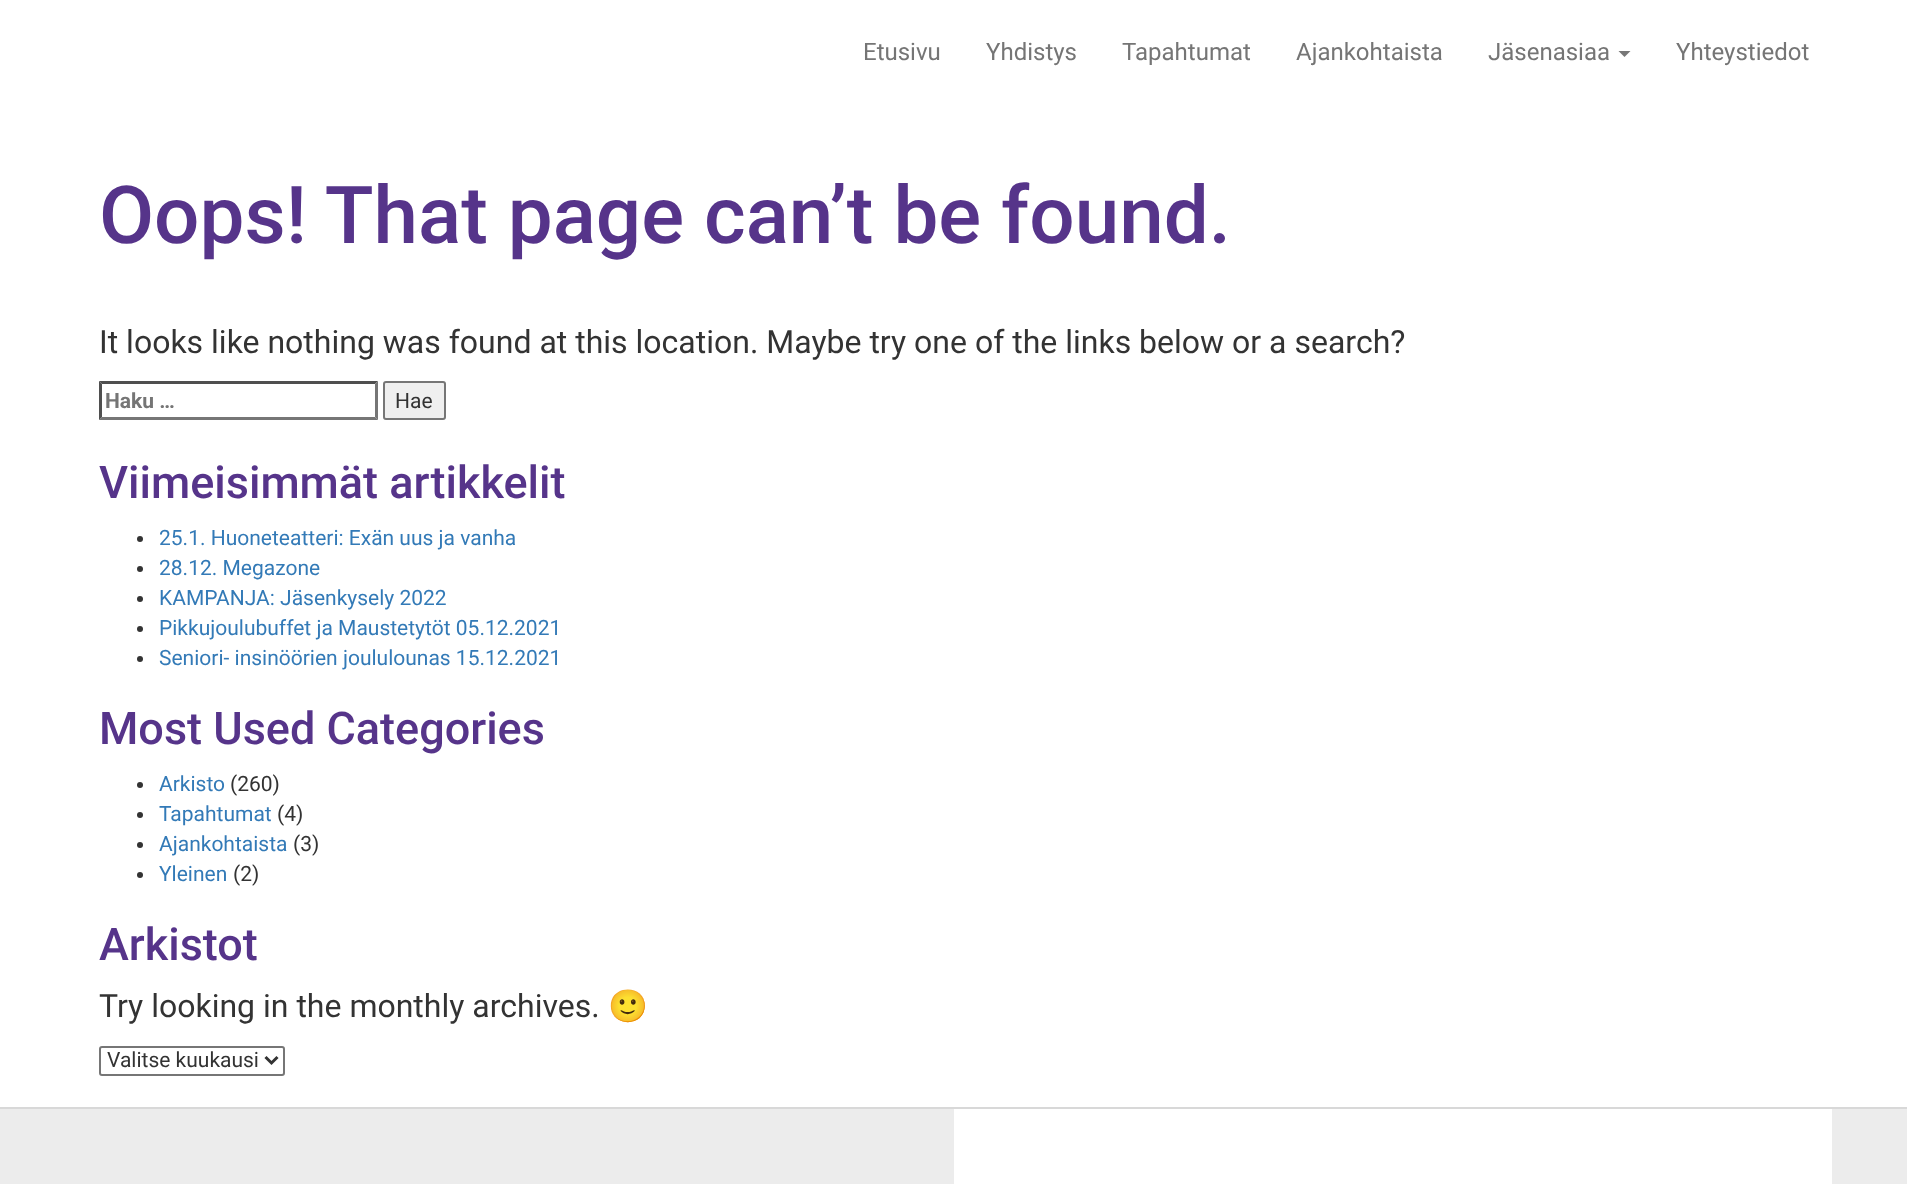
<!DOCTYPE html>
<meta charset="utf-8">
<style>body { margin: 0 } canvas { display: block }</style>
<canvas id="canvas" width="1907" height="1184"></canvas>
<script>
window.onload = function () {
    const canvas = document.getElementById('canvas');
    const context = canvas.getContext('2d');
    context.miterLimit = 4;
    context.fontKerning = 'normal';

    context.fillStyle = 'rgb(255, 255, 255)';
    context.fillRect(0, 0, 1907, 1184);
    context.fillStyle = 'rgb(119, 119, 119)';
    context.beginPath();
    context.moveTo(1618.5, 51);
    context.lineTo(1630.5, 51);
    context.lineTo(1624.5, 57);
    context.closePath();
    context.fill();
    context.fillStyle = 'rgb(79, 79, 79)';
    context.beginPath();
    context.moveTo(99, 381);
    context.lineTo(378, 381);
    context.lineTo(375, 384);
    context.lineTo(102, 384);
    context.closePath();
    context.fill();
    context.fillStyle = 'rgb(118, 118, 118)';
    context.beginPath();
    context.moveTo(378, 381);
    context.lineTo(378, 420);
    context.lineTo(375, 417);
    context.lineTo(375, 384);
    context.closePath();
    context.fill();
    context.beginPath();
    context.moveTo(378, 420);
    context.lineTo(99, 420);
    context.lineTo(102, 417);
    context.lineTo(375, 417);
    context.closePath();
    context.fill();
    context.fillStyle = 'rgb(79, 79, 79)';
    context.beginPath();
    context.moveTo(99, 420);
    context.lineTo(99, 381);
    context.lineTo(102, 384);
    context.lineTo(102, 417);
    context.closePath();
    context.fill();
    context.fillStyle = 'rgb(239, 239, 239)';
    context.beginPath();
    context.roundRect(384, 382, 61, 37, 2);
    context.fill();
    context.strokeStyle = 'rgb(118, 118, 118)';
    context.lineWidth = 2;
    context.stroke();
    context.fillStyle = 'rgb(51, 51, 51)';
    context.beginPath();
    context.arc(140, 539, 3, 0, 2 * Math.PI);
    context.fill();
    context.beginPath();
    context.arc(140, 569, 3, 0, 2 * Math.PI);
    context.fill();
    context.beginPath();
    context.arc(140, 599, 3, 0, 2 * Math.PI);
    context.fill();
    context.beginPath();
    context.arc(140, 629, 3, 0, 2 * Math.PI);
    context.fill();
    context.beginPath();
    context.arc(140, 659, 3, 0, 2 * Math.PI);
    context.fill();
    context.beginPath();
    context.arc(140, 785, 3, 0, 2 * Math.PI);
    context.fill();
    context.beginPath();
    context.arc(140, 815, 3, 0, 2 * Math.PI);
    context.fill();
    context.beginPath();
    context.arc(140, 845, 3, 0, 2 * Math.PI);
    context.fill();
    context.beginPath();
    context.arc(140, 875, 3, 0, 2 * Math.PI);
    context.fill();
    context.beginPath();
    context.roundRect(100, 1047, 184, 28, 2);
    context.stroke();
    context.beginPath();
    context.moveTo(265.5, 1057);
    context.lineTo(271.5, 1063);
    context.lineTo(277.5, 1057);
    context.strokeStyle = 'rgb(51, 51, 51)';
    context.lineWidth = 3;
    context.stroke();
    context.fillStyle = 'rgb(236, 236, 236)';
    context.fillRect(0, 1109, 1907, 75);
    context.fillStyle = 'rgb(216, 216, 216)';
    context.fillRect(0, 1107, 1907, 2);
    context.fillStyle = 'rgb(255, 255, 255)';
    context.fillRect(954, 1109, 878, 75);
    context.font = '24px Roboto';
    context.fillStyle = 'rgb(117, 117, 117)';
    context.fillText('Etusivu', 863, 60);
    context.fillText('Yhdistys', 986, 60);
    context.fillText('Tapahtumat', 1122, 60);
    context.fillText('Ajankohtaista', 1296, 60);
    context.fillText('Jäsenasiaa', 1488, 60);
    context.fillText('Yhteystiedot', 1676, 60);
    context.font = '500 80px Roboto';
    context.fillStyle = 'rgb(86, 52, 138)';
    context.fillText('Oops! That page can’t be found.', 99, 243);
    context.font = '32px Roboto';
    context.fillStyle = 'rgb(51, 51, 51)';
    context.fillText('It looks like nothing was found at this location. Maybe try one of the links below or a search?', 99, 353);
    context.font = 'bold 21px Roboto';
    context.fillStyle = 'rgb(117, 117, 117)';
    context.fillText('Haku …', 105, 408);
    context.font = '21px Roboto';
    context.fillStyle = 'rgb(51, 51, 51)';
    context.fillText('Hae', 395, 408);
    context.font = '500 45px Roboto';
    context.fillStyle = 'rgb(86, 52, 138)';
    context.fillText('Viimeisimmät artikkelit', 99, 498);
    context.font = '21px Roboto';
    context.fillStyle = 'rgb(51, 122, 183)';
    context.fillText('25.1. Huoneteatteri: Exän uus ja vanha', 159, 545);
    context.fillText('28.12. Megazone', 159, 575);
    context.fillText('KAMPANJA: Jäsenkysely 2022', 159, 605);
    context.fillText('Pikkujoulubuffet ja Maustetytöt 05.12.2021', 159, 635);
    context.fillText('Seniori- insinöörien joululounas 15.12.2021', 159, 665);
    context.font = '500 45px Roboto';
    context.fillStyle = 'rgb(86, 52, 138)';
    context.fillText('Most Used Categories', 99, 744);
    context.font = '21px Roboto';
    context.fillStyle = 'rgb(51, 122, 183)';
    context.fillText('Arkisto', 159, 791);
    context.fillStyle = 'rgb(51, 51, 51)';
    context.fillText('(260)', 230, 791);
    context.fillStyle = 'rgb(51, 122, 183)';
    context.fillText('Tapahtumat', 159, 821);
    context.fillStyle = 'rgb(51, 51, 51)';
    context.fillText('(4)', 277, 821);
    context.fillStyle = 'rgb(51, 122, 183)';
    context.fillText('Ajankohtaista', 159, 851);
    context.fillStyle = 'rgb(51, 51, 51)';
    context.fillText('(3)', 293, 851);
    context.fillStyle = 'rgb(51, 122, 183)';
    context.fillText('Yleinen', 159, 881);
    context.fillStyle = 'rgb(51, 51, 51)';
    context.fillText('(2)', 233, 881);
    context.font = '500 45px Roboto';
    context.fillStyle = 'rgb(86, 52, 138)';
    context.fillText('Arkistot', 99, 960);
    context.font = '32px Roboto';
    context.fillStyle = 'rgb(51, 51, 51)';
    context.fillText('Try looking in the monthly archives.', 99, 1017);
    context.font = '32px Noto Color Emoji';
    context.fillText('🙂', 608, 1017);
    context.font = '21px Roboto';
    context.fillText('Valitse kuukausi', 107, 1067);
};
</script>
